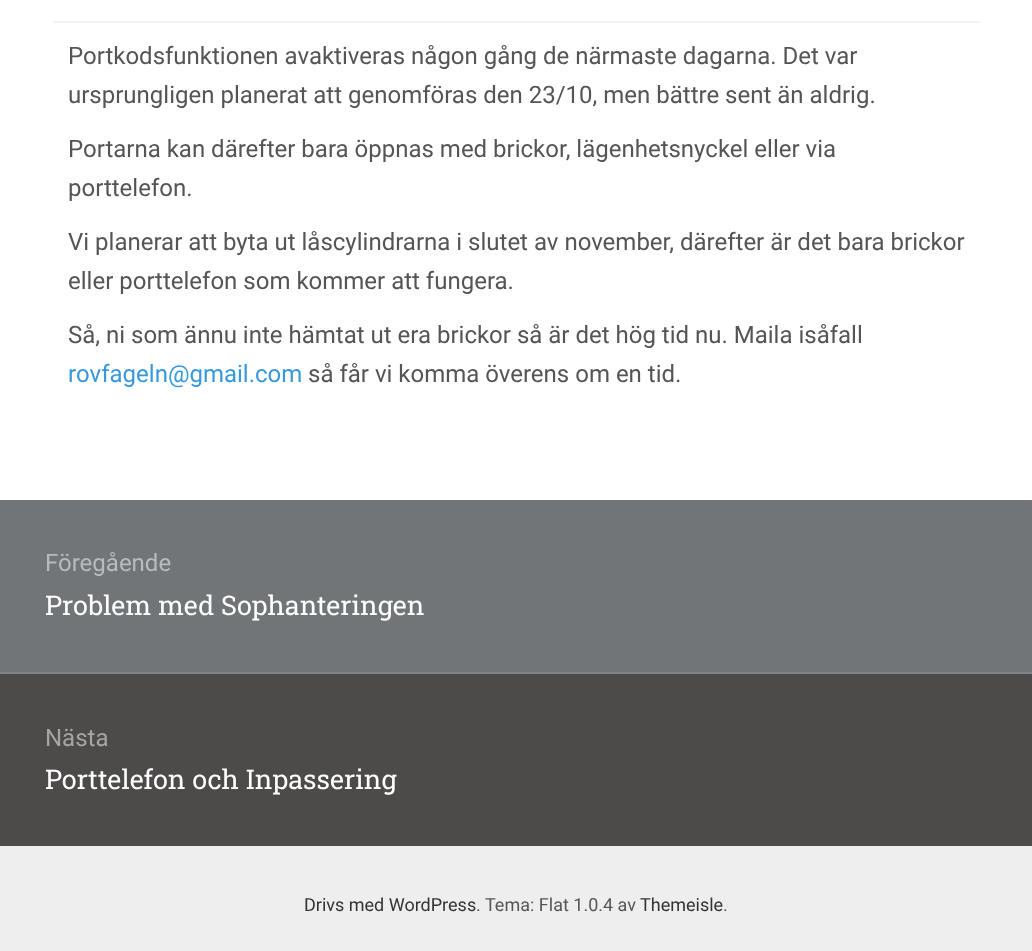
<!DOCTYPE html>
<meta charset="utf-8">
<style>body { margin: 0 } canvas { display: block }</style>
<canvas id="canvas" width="1032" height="951"></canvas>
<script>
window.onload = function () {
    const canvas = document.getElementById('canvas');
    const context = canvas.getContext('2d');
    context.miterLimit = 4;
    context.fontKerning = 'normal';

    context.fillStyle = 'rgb(255, 255, 255)';
    context.fillRect(0, 0, 1032, 951);
    context.fillStyle = 'rgb(243, 243, 243)';
    context.fillRect(53, 21, 927, 2);
    context.fillStyle = 'rgb(113, 117, 119)';
    context.fillRect(0, 500, 1032, 172);
    context.fillStyle = 'rgb(127, 131, 133)';
    context.fillRect(0, 672, 1032, 2);
    context.fillStyle = 'rgb(77, 74, 74)';
    context.fillRect(0, 674, 1032, 172);
    context.fillStyle = 'rgb(238, 238, 238)';
    context.fillRect(0, 846, 1032, 105);
    context.font = '24px Roboto';
    context.fillStyle = 'rgb(85, 85, 85)';
    context.fillText('Portkodsfunktionen avaktiveras någon gång de närmaste dagarna. Det var', 68, 64);
    context.fillText('ursprungligen planerat att genomföras den 23/10, men bättre sent än aldrig.', 68, 103);
    context.fillText('Portarna kan därefter bara öppnas med brickor, lägenhetsnyckel eller via', 68, 157);
    context.fillText('porttelefon.', 68, 196);
    context.fillText('Vi planerar att byta ut låscylindrarna i slutet av november, därefter är det bara brickor', 68, 250);
    context.fillText('eller porttelefon som kommer att fungera.', 68, 289);
    context.fillText('Så, ni som ännu inte hämtat ut era brickor så är det hög tid nu. Maila isåfall', 68, 343);
    context.fillStyle = 'rgb(54, 153, 220)';
    context.fillText('rovfageln@gmail.com', 68, 382);
    context.fillStyle = 'rgb(85, 85, 85)';
    context.fillText('så får vi komma överens om en tid.', 308, 382);
    context.fillStyle = 'rgb(184, 186, 187)';
    context.fillText('Föregående', 45, 571);
    context.font = '27px Roboto Slab';
    context.fillStyle = 'rgb(255, 255, 255)';
    context.fillText('Problem med Sophanteringen', 45, 615);
    context.font = '24px Roboto';
    context.fillStyle = 'rgb(166, 165, 165)';
    context.fillText('Nästa', 45, 746);
    context.font = '27px Roboto Slab';
    context.fillStyle = 'rgb(255, 255, 255)';
    context.fillText('Porttelefon och Inpassering', 45, 789);
    context.font = '18px Roboto';
    context.fillStyle = 'rgb(51, 51, 51)';
    context.fillText('Drivs med WordPress', 304, 911);
    context.fillStyle = 'rgb(85, 85, 85)';
    context.fillText('.', 476, 911);
    context.fillText('Tema: Flat 1.0.4 av', 485, 911);
    context.fillStyle = 'rgb(51, 51, 51)';
    context.fillText('Themeisle', 640, 911);
    context.fillStyle = 'rgb(85, 85, 85)';
    context.fillText('.', 723, 911);
};
</script>
